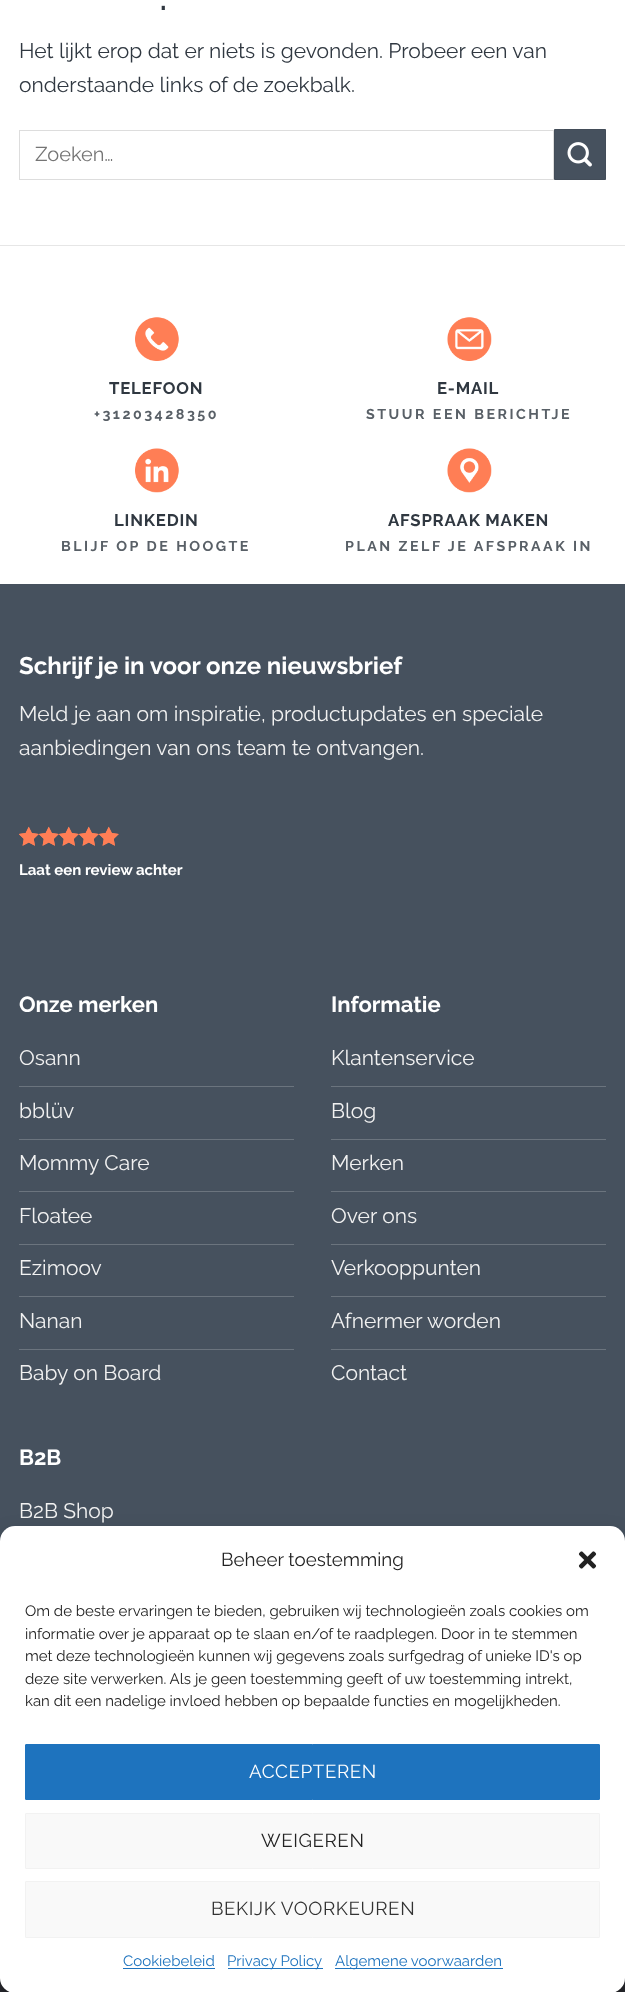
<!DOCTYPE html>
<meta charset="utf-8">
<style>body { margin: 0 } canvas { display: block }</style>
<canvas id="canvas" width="625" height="1992"></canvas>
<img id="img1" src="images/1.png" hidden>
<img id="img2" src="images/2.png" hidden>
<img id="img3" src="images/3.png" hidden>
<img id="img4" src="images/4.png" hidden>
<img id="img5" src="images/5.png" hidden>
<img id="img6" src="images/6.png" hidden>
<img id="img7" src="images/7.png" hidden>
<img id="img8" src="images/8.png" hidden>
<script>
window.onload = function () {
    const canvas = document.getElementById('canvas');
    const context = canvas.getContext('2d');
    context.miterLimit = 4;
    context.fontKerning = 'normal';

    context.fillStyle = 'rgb(255, 255, 255)';
    context.fillRect(0, 0, 625, 1992);
    context.strokeStyle = 'rgb(221, 221, 221)';
    context.strokeRect(19.5, 130.5, 534, 49);
    context.fillStyle = 'rgb(70, 81, 94)';
    context.beginPath();
    context.rect(554.5, 129.5, 51, 50);
    context.fill();
    context.strokeStyle = 'rgb(67, 77, 89)';
    context.stroke();
    context.drawImage(document.getElementById('img1'), 567, 142, 25, 25);
    context.fillStyle = 'rgb(230, 230, 230)';
    context.fillRect(0, 245, 625, 1);
    context.drawImage(document.getElementById('img2'), 135, 317, 44, 44);
    context.drawImage(document.getElementById('img3'), 447, 317, 45, 44);
    context.drawImage(document.getElementById('img4'), 135, 448, 44, 45);
    context.drawImage(document.getElementById('img5'), 447, 448, 45, 45);
    context.fillStyle = 'rgb(70, 81, 94)';
    context.fillRect(0, 584, 625, 957);
    context.drawImage(document.getElementById('img6'), 19, 826, 100, 20);
    context.drawImage(document.getElementById('img7'), 19, 826, 100, 20);
    context.fillStyle = 'rgb(107, 116, 126)';
    context.fillRect(19, 1086, 275, 1);
    context.fillRect(19, 1139, 275, 1);
    context.fillRect(19, 1191, 275, 1);
    context.fillRect(19, 1244, 275, 1);
    context.fillRect(19, 1296, 275, 1);
    context.fillRect(19, 1349, 275, 1);
    context.fillRect(331, 1086, 275, 1);
    context.fillRect(331, 1139, 275, 1);
    context.fillRect(331, 1191, 275, 1);
    context.fillRect(331, 1244, 275, 1);
    context.fillRect(331, 1296, 275, 1);
    context.fillRect(331, 1349, 275, 1);
    context.fillStyle = 'rgb(44, 45, 51)';
    context.fillRect(0, 1978, 625, 14);
    context.fillStyle = 'rgba(0, 0, 0, 0.23)';
    context.filter = 'blur(4px)';
    context.beginPath();
    context.roundRect(0, 1534, 625, 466, 15);
    context.fill();
    context.filter = 'none';
    context.fillStyle = 'rgba(0, 0, 0, 0.19)';
    context.filter = 'blur(12.5px)';
    context.beginPath();
    context.roundRect(0, 1539, 625, 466, 15);
    context.fill();
    context.filter = 'none';
    context.fillStyle = 'rgb(128, 128, 128)';
    context.filter = 'blur(3px)';
    context.beginPath();
    context.roundRect(538, 1900, 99, 75, 2.5);
    context.fill();
    context.filter = 'none';
    context.fillStyle = 'rgb(255, 255, 255)';
    context.beginPath();
    context.roundRect(0, 1526, 625, 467, 15);
    context.fill();
    context.drawImage(document.getElementById('img8'), 578, 1551, 19, 18);
    context.fillStyle = 'rgb(30, 115, 190)';
    context.beginPath();
    context.roundRect(25.5, 1744.5, 574, 55, 0.5);
    context.fill();
    context.strokeStyle = 'rgb(30, 115, 190)';
    context.stroke();
    context.fillStyle = 'rgb(249, 249, 249)';
    context.beginPath();
    context.roundRect(25.5, 1813.5, 574, 55, 0.5);
    context.fill();
    context.strokeStyle = 'rgb(242, 242, 242)';
    context.stroke();
    context.beginPath();
    context.roundRect(25.5, 1881.5, 574, 56, 0.5);
    context.fill();
    context.stroke();
    context.fillStyle = 'rgb(30, 115, 190)';
    context.fillRect(123, 1968, 92, 1);
    context.fillRect(228, 1968, 95, 1);
    context.fillRect(335, 1968, 168, 1);
    context.font = 'bold 29px Raleway';
    context.fillStyle = 'rgb(48, 56, 65)';
    context.fillText('.', 160, 10);
    context.font = '21px Raleway';
    context.fillText('Het lijkt erop dat er niets is gevonden. Probeer een van', 19, 58);
    context.fillText('onderstaande links of de zoekbalk.', 19, 92);
    context.font = '20px Raleway';
    context.fillStyle = 'rgb(117, 117, 117)';
    context.fillText('Zoeken…', 35, 161);
    context.letterSpacing = '0.8px';
    context.font = 'bold 16.75px Raleway';
    context.fillStyle = 'rgb(48, 56, 65)';
    context.fillText('TELEFOON', 109, 394);
    context.letterSpacing = '2.5px';
    context.font = 'bold 14.25px Raleway';
    context.fillStyle = 'rgb(89, 96, 103)';
    context.fillText('+31203428350', 94, 419);
    context.letterSpacing = '0.8px';
    context.font = 'bold 16.75px Raleway';
    context.fillStyle = 'rgb(48, 56, 65)';
    context.fillText('E-MAIL', 437, 394);
    context.letterSpacing = '2.5px';
    context.font = 'bold 14.25px Raleway';
    context.fillStyle = 'rgb(89, 96, 103)';
    context.fillText('STUUR EEN BERICHTJE', 366, 419);
    context.letterSpacing = '0.8px';
    context.font = 'bold 16.75px Raleway';
    context.fillStyle = 'rgb(48, 56, 65)';
    context.fillText('LINKEDIN', 114, 526);
    context.letterSpacing = '2.5px';
    context.font = 'bold 14.25px Raleway';
    context.fillStyle = 'rgb(89, 96, 103)';
    context.fillText('BLIJF OP DE HOOGTE', 61, 551);
    context.letterSpacing = '0.8px';
    context.font = 'bold 16.75px Raleway';
    context.fillStyle = 'rgb(48, 56, 65)';
    context.fillText('AFSPRAAK MAKEN', 388, 526);
    context.letterSpacing = '2.5px';
    context.font = 'bold 14.25px Raleway';
    context.fillStyle = 'rgb(89, 96, 103)';
    context.fillText('PLAN ZELF JE AFSPRAAK IN', 345, 551);
    context.letterSpacing = '0px';
    context.font = 'bold 24px Raleway';
    context.fillStyle = 'rgb(255, 255, 255)';
    context.fillText('Schrijf je in voor onze nieuwsbrief', 19, 674);
    context.font = '21px Raleway';
    context.fillStyle = 'rgb(241, 241, 241)';
    context.fillText('Meld je aan om inspiratie, productupdates en speciale', 19, 721);
    context.fillText('aanbiedingen van ons team te ontvangen.', 19, 755);
    context.font = 'bold 15px Raleway';
    context.fillStyle = 'rgb(255, 255, 255)';
    context.fillText('Laat een review achter', 19, 875);
    context.font = 'bold 22px Raleway';
    context.fillText('Onze merken', 19, 1012);
    context.font = '21px Raleway';
    context.fillStyle = 'rgb(241, 241, 241)';
    context.fillText('Osann', 19, 1065);
    context.fillText('bblüv', 19, 1118);
    context.fillText('Mommy Care', 19, 1170);
    context.fillText('Floatee', 19, 1223);
    context.fillText('Ezimoov', 19, 1275);
    context.fillText('Nanan', 19, 1328);
    context.fillText('Baby on Board', 19, 1380);
    context.font = 'bold 22px Raleway';
    context.fillStyle = 'rgb(255, 255, 255)';
    context.fillText('Informatie', 331, 1012);
    context.font = '21px Raleway';
    context.fillStyle = 'rgb(241, 241, 241)';
    context.fillText('Klantenservice', 331, 1065);
    context.fillText('Blog', 331, 1118);
    context.fillText('Merken', 331, 1170);
    context.fillText('Over ons', 331, 1223);
    context.fillText('Verkooppunten', 331, 1275);
    context.fillText('Afnermer worden', 331, 1328);
    context.fillText('Contact', 331, 1380);
    context.font = 'bold 22px Raleway';
    context.fillStyle = 'rgb(255, 255, 255)';
    context.fillText('B2B', 19, 1465);
    context.font = '21px Raleway';
    context.fillStyle = 'rgb(241, 241, 241)';
    context.fillText('B2B Shop', 19, 1518);
    context.font = '18.75px Raleway';
    context.fillStyle = 'rgb(34, 34, 34)';
    context.fillText('Beheer toestemming', 221, 1566);
    context.font = '15px Raleway';
    context.fillText('Om de beste ervaringen te bieden, gebruiken wij technologieën zoals cookies om', 25, 1616);
    context.fillText('informatie over je apparaat op te slaan en/of te raadplegen. Door in te stemmen', 25, 1639);
    context.fillText('met deze technologieën kunnen wij gegevens zoals surfgedrag of unieke ID\'s op', 25, 1661);
    context.fillText('deze site verwerken. Als je geen toestemming geeft of uw toestemming intrekt,', 25, 1684);
    context.fillText('kan dit een nadelige invloed hebben op bepaalde functies en mogelijkheden.', 25, 1706);
    context.letterSpacing = '0.6px';
    context.font = '18.75px Raleway';
    context.fillStyle = 'rgb(255, 255, 255)';
    context.fillText('ACCEPTEREN', 249, 1778);
    context.fillStyle = 'rgb(34, 34, 34)';
    context.fillText('WEIGEREN', 261, 1847);
    context.fillStyle = 'rgb(51, 51, 51)';
    context.fillText('BEKIJK VOORKEUREN', 211, 1915);
    context.letterSpacing = '0px';
    context.font = '15px Raleway';
    context.fillStyle = 'rgb(30, 115, 190)';
    context.fillText('Cookiebeleid', 123, 1966);
    context.fillText('Privacy Policy', 227, 1966);
    context.fillText('Algemene voorwaarden', 335, 1966);
};
</script>
